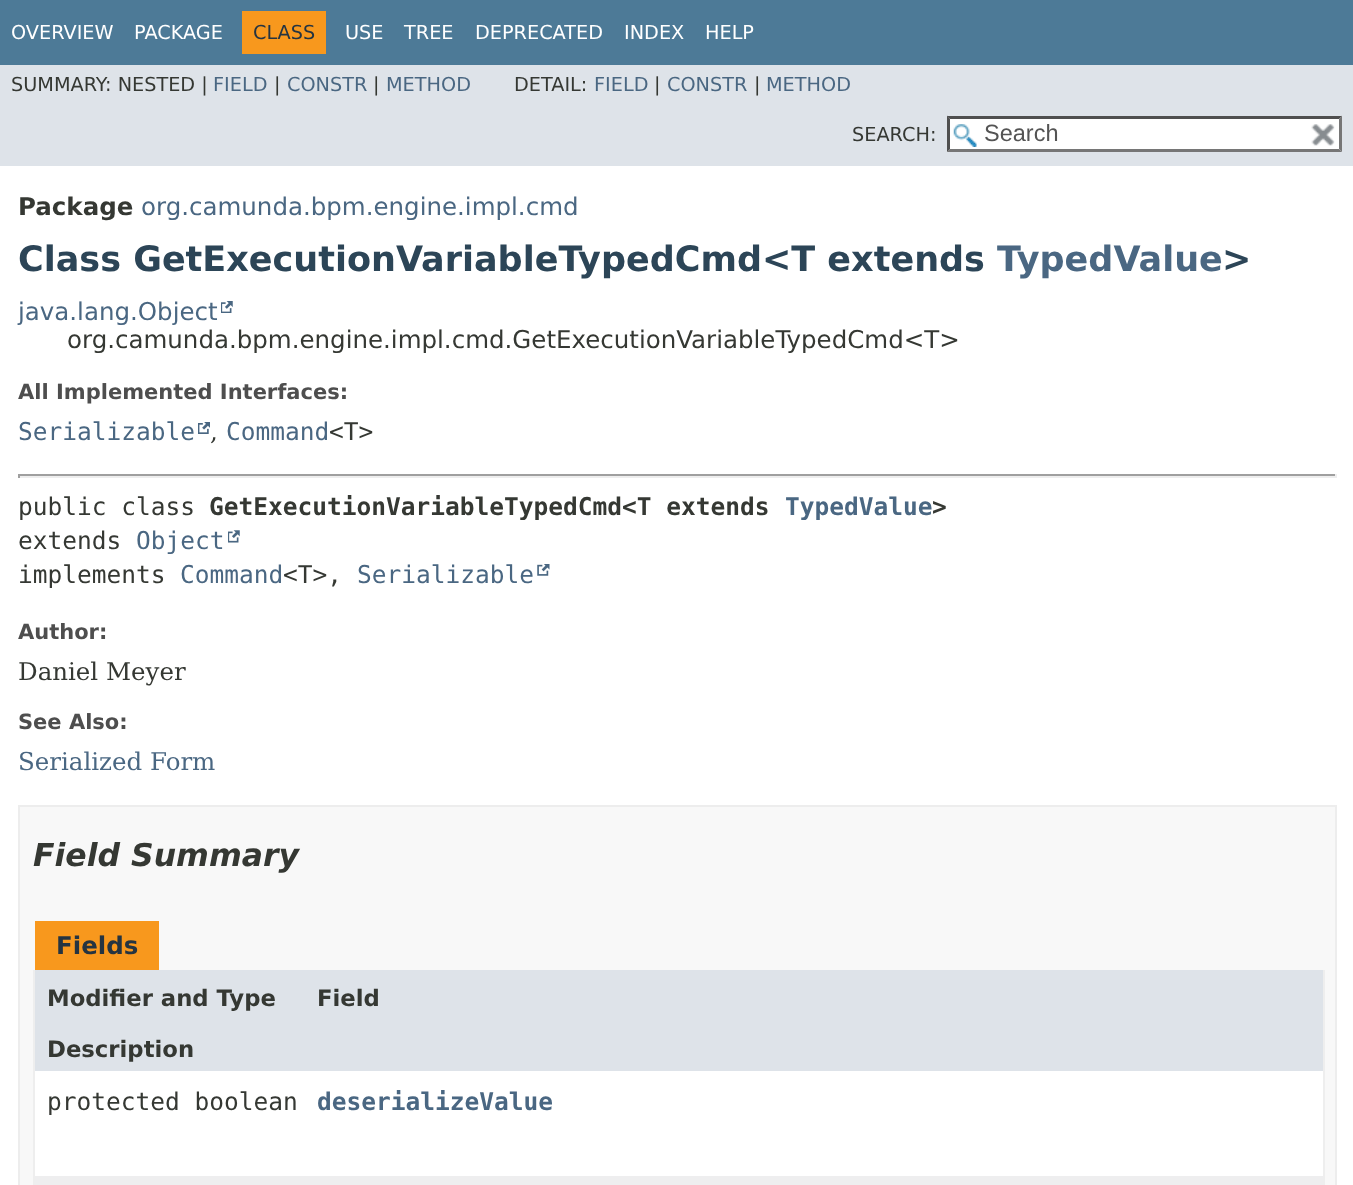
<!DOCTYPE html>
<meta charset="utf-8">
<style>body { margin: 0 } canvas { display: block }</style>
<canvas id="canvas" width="1353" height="1185"></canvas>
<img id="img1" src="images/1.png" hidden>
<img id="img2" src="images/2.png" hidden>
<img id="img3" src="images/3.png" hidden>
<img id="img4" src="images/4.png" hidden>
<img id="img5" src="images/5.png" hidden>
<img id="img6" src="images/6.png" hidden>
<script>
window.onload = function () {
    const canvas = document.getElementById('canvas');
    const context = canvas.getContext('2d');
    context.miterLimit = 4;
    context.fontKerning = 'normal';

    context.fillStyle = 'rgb(255, 255, 255)';
    context.fillRect(0, 0, 1353, 1185);
    context.fillStyle = 'rgb(77, 122, 151)';
    context.fillRect(0, 0, 1353, 65);
    context.fillStyle = 'rgb(248, 152, 29)';
    context.fillRect(242, 11, 84, 43);
    context.fillStyle = 'rgb(222, 227, 233)';
    context.fillRect(0, 65, 1353, 101);
    context.fillStyle = 'rgb(255, 255, 255)';
    context.fillRect(947, 116, 395, 36);
    context.drawImage(document.getElementById('img1'), 953, 124, 24, 23);
    context.fillStyle = 'rgb(79, 79, 79)';
    context.beginPath();
    context.moveTo(947, 116);
    context.lineTo(1342, 116);
    context.lineTo(1339, 119);
    context.lineTo(950, 119);
    context.closePath();
    context.fill();
    context.fillStyle = 'rgb(118, 118, 118)';
    context.beginPath();
    context.moveTo(1342, 115.5);
    context.lineTo(1342, 152);
    context.lineTo(1339, 149);
    context.lineTo(1339, 119);
    context.closePath();
    context.fill();
    context.beginPath();
    context.moveTo(1342, 152);
    context.lineTo(947, 152);
    context.lineTo(950, 149);
    context.lineTo(1339, 149);
    context.closePath();
    context.fill();
    context.fillStyle = 'rgb(79, 79, 79)';
    context.beginPath();
    context.moveTo(947, 152);
    context.lineTo(947, 115.5);
    context.lineTo(950, 119);
    context.lineTo(950, 149);
    context.closePath();
    context.fill();
    context.drawImage(document.getElementById('img2'), 1311, 124, 24, 22);
    context.drawImage(document.getElementById('img3'), 221, 301, 12, 12);
    context.drawImage(document.getElementById('img4'), 198, 422, 12, 12);
    context.fillStyle = 'rgb(159, 159, 159)';
    context.fillRect(18, 474, 1319, 2);
    context.fillStyle = 'rgb(238, 238, 238)';
    context.fillRect(1335, 474, 2, 4);
    context.fillRect(18, 476, 1319, 2);
    context.fillStyle = 'rgb(159, 159, 159)';
    context.fillRect(18, 474, 2, 4);
    context.drawImage(document.getElementById('img5'), 228, 530, 12, 13);
    context.drawImage(document.getElementById('img6'), 537, 564, 13, 12);
    context.fillStyle = 'rgb(248, 248, 248)';
    context.beginPath();
    context.rect(19, 806, 1317, 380);
    context.fill();
    context.strokeStyle = 'rgb(237, 237, 237)';
    context.lineWidth = 2;
    context.stroke();
    context.fillStyle = 'rgb(248, 152, 29)';
    context.fillRect(35, 921, 124, 49);
    context.fillStyle = 'rgb(238, 238, 238)';
    context.fillRect(1323, 970, 2, 215);
    context.fillRect(33, 970, 2, 215);
    context.fillStyle = 'rgb(222, 227, 233)';
    context.fillRect(35, 970, 1288, 50);
    context.fillRect(35, 1020, 1288, 51);
    context.fillStyle = 'rgb(255, 255, 255)';
    context.fillRect(35, 1071, 1288, 54);
    context.fillRect(35, 1125, 1288, 51);
    context.fillStyle = 'rgb(238, 238, 239)';
    context.fillRect(35, 1176, 1288, 9);
    context.font = '19.25px DejaVu Sans';
    context.fillStyle = 'rgb(255, 255, 255)';
    context.fillText('OVERVIEW', 11, 39);
    context.fillText('PACKAGE', 134, 39);
    context.fillStyle = 'rgb(37, 52, 65)';
    context.fillText('CLASS', 253, 39);
    context.fillStyle = 'rgb(255, 255, 255)';
    context.fillText('USE', 345, 39);
    context.fillText('TREE', 404, 39);
    context.fillText('DEPRECATED', 475, 39);
    context.fillText('INDEX', 624, 39);
    context.fillText('HELP', 705, 39);
    context.fillStyle = 'rgb(53, 56, 51)';
    context.fillText('SUMMARY: NESTED |', 11, 91);
    context.fillStyle = 'rgb(74, 103, 130)';
    context.fillText('FIELD', 213, 91);
    context.fillStyle = 'rgb(53, 56, 51)';
    context.fillText('|', 274, 91);
    context.fillStyle = 'rgb(74, 103, 130)';
    context.fillText('CONSTR', 287, 91);
    context.fillStyle = 'rgb(53, 56, 51)';
    context.fillText('|', 373, 91);
    context.fillStyle = 'rgb(74, 103, 130)';
    context.fillText('METHOD', 386, 91);
    context.fillStyle = 'rgb(53, 56, 51)';
    context.fillText('DETAIL:', 514, 91);
    context.fillStyle = 'rgb(74, 103, 130)';
    context.fillText('FIELD', 594, 91);
    context.fillStyle = 'rgb(53, 56, 51)';
    context.fillText('|', 654, 91);
    context.fillStyle = 'rgb(74, 103, 130)';
    context.fillText('CONSTR', 667, 91);
    context.fillStyle = 'rgb(53, 56, 51)';
    context.fillText('|', 754, 91);
    context.fillStyle = 'rgb(74, 103, 130)';
    context.fillText('METHOD', 766, 91);
    context.fillStyle = 'rgb(53, 56, 51)';
    context.fillText('SEARCH:', 852, 141);
    context.font = '23.5px Liberation Sans';
    context.fillStyle = 'rgb(84, 84, 84)';
    context.fillText('Search', 984, 141);
    context.font = 'bold 24.5px DejaVu Sans';
    context.fillStyle = 'rgb(53, 56, 51)';
    context.fillText('Package', 18, 215);
    context.font = '24.5px DejaVu Sans';
    context.fillStyle = 'rgb(74, 103, 130)';
    context.fillText('org.camunda.bpm.engine.impl.cmd', 141, 215);
    context.font = 'bold 35px DejaVu Sans';
    context.fillStyle = 'rgb(44, 69, 87)';
    context.fillText('Class GetExecutionVariableTypedCmd<T extends', 18, 271);
    context.fillStyle = 'rgb(74, 103, 130)';
    context.fillText('TypedValue', 997, 271);
    context.fillStyle = 'rgb(44, 69, 87)';
    context.fillText('>', 1222, 271);
    context.font = '24.5px DejaVu Sans';
    context.fillStyle = 'rgb(74, 103, 130)';
    context.fillText('java.lang.Object', 18, 320);
    context.fillStyle = 'rgb(53, 56, 51)';
    context.fillText('org.camunda.bpm.engine.impl.cmd.GetExecutionVariableTypedCmd<T>', 67, 348);
    context.font = 'bold 21px DejaVu Sans';
    context.fillStyle = 'rgb(78, 78, 78)';
    context.fillText('All Implemented Interfaces:', 18, 399);
    context.font = '24.5px DejaVu Sans Mono';
    context.fillStyle = 'rgb(74, 103, 130)';
    context.fillText('Serializable', 18, 440);
    context.font = '24.5px DejaVu Serif';
    context.fillStyle = 'rgb(53, 56, 51)';
    context.fillText(',', 210, 440);
    context.font = '24.5px DejaVu Sans Mono';
    context.fillStyle = 'rgb(74, 103, 130)';
    context.fillText('Command', 226, 440);
    context.fillStyle = 'rgb(53, 56, 51)';
    context.fillText('<T>', 329, 440);
    context.fillText('public class', 18, 515);
    context.font = 'bold 24.5px DejaVu Sans Mono';
    context.fillText('GetExecutionVariableTypedCmd<T extends', 209, 515);
    context.fillStyle = 'rgb(74, 103, 130)';
    context.fillText('TypedValue', 785, 515);
    context.fillStyle = 'rgb(53, 56, 51)';
    context.fillText('>', 932, 515);
    context.font = '24.5px DejaVu Sans Mono';
    context.fillText('extends', 18, 549);
    context.fillStyle = 'rgb(74, 103, 130)';
    context.fillText('Object', 136, 549);
    context.fillStyle = 'rgb(53, 56, 51)';
    context.fillText('implements', 18, 583);
    context.fillStyle = 'rgb(74, 103, 130)';
    context.fillText('Command', 180, 583);
    context.fillStyle = 'rgb(53, 56, 51)';
    context.fillText('<T>,', 283, 583);
    context.fillStyle = 'rgb(74, 103, 130)';
    context.fillText('Serializable', 357, 583);
    context.font = 'bold 21px DejaVu Sans';
    context.fillStyle = 'rgb(78, 78, 78)';
    context.fillText('Author:', 18, 639);
    context.font = '24.5px DejaVu Serif';
    context.fillStyle = 'rgb(53, 56, 51)';
    context.fillText('Daniel Meyer', 18, 680);
    context.font = 'bold 21px DejaVu Sans';
    context.fillStyle = 'rgb(78, 78, 78)';
    context.fillText('See Also:', 18, 729);
    context.font = '24.5px DejaVu Serif';
    context.fillStyle = 'rgb(74, 103, 130)';
    context.fillText('Serialized Form', 18, 770);
    context.font = 'italic bold 31.5px DejaVu Sans';
    context.fillStyle = 'rgb(53, 56, 51)';
    context.fillText('Field Summary', 33, 866);
    context.font = 'bold 24.5px DejaVu Sans';
    context.fillStyle = 'rgb(37, 52, 65)';
    context.fillText('Fields', 56, 954);
    context.font = 'bold 22.75px DejaVu Sans';
    context.fillStyle = 'rgb(53, 56, 51)';
    context.fillText('Modifier and Type', 47, 1006);
    context.fillText('Field', 317, 1006);
    context.fillText('Description', 47, 1057);
    context.font = '24.5px DejaVu Sans Mono';
    context.fillText('protected boolean', 47, 1110);
    context.font = 'bold 24.5px DejaVu Sans Mono';
    context.fillStyle = 'rgb(74, 103, 130)';
    context.fillText('deserializeValue', 317, 1110);
};
</script>
